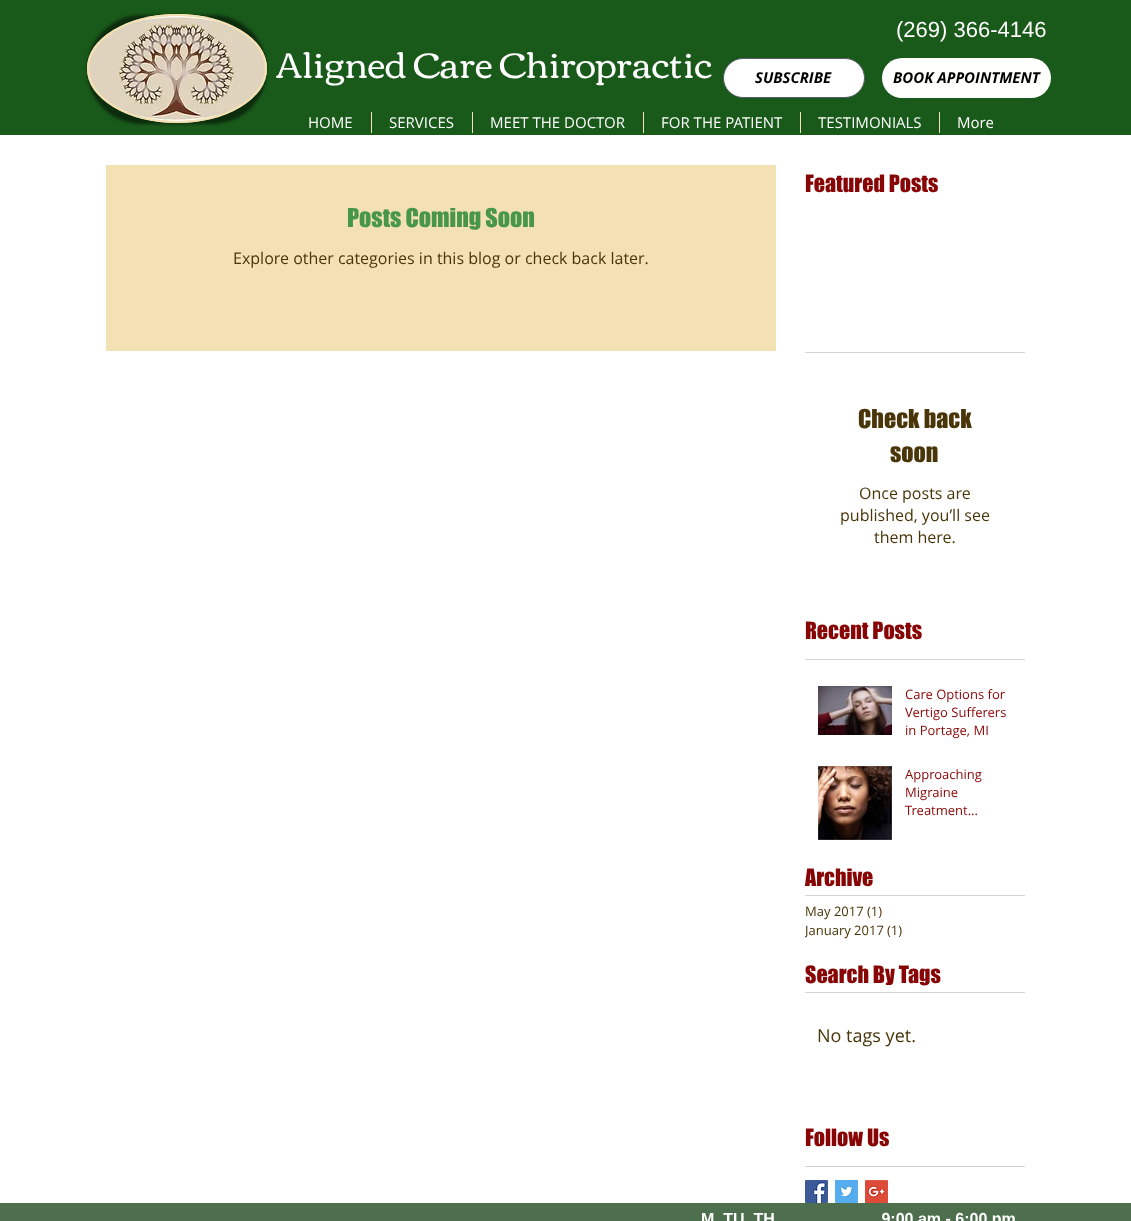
<!DOCTYPE html>
<meta charset="utf-8">
<style>body { margin: 0 } canvas { display: block }</style>
<canvas id="canvas" width="1131" height="1221"></canvas>
<img id="img1" src="images/1.png" hidden>
<img id="img2" src="images/2.png" hidden>
<img id="img3" src="images/3.png" hidden>
<img id="img4" src="images/4.png" hidden>
<img id="img5" src="images/5.png" hidden>
<img id="img6" src="images/6.png" hidden>
<script>
window.onload = function () {
    const canvas = document.getElementById('canvas');
    const context = canvas.getContext('2d');
    context.miterLimit = 4;
    context.fontKerning = 'normal';

    context.fillStyle = 'rgb(255, 255, 255)';
    context.fillRect(0, 0, 1131, 1221);
    context.fillStyle = 'rgb(25, 90, 26)';
    context.fillRect(0, 0, 1131, 135);
    context.fillStyle = 'rgba(0, 0, 0, 0.5)';
    context.filter = 'blur(1.5px)';
    context.beginPath();
    context.roundRect(87, 15, 180, 109, 54.5);
    context.fill();
    context.filter = 'none';
    context.fillStyle = 'rgb(243, 224, 179)';
    context.beginPath();
    context.ellipse(177, 68.5, 90, 54.5, 0, 0, 2 * Math.PI);
    context.fill();
    context.beginPath();
    context.moveTo(177, 15);
    context.bezierCurveTo(226, 15, 266, 39, 266, 68.5);
    context.bezierCurveTo(266, 98, 226, 122, 177, 122);
    context.bezierCurveTo(128, 122, 88, 98, 88, 68.5);
    context.bezierCurveTo(88, 39, 128, 15, 177, 15);
    context.closePath();
    context.strokeStyle = 'rgb(243, 224, 179)';
    context.lineWidth = 2;
    context.stroke();
    context.drawImage(document.getElementById('img1'), 89, 16, 176, 105);
    context.fillStyle = 'rgb(255, 255, 255)';
    context.beginPath();
    context.roundRect(723.5, 58.5, 141, 39, 19.5);
    context.fill();
    context.strokeStyle = 'rgb(89, 94, 102)';
    context.lineWidth = 1;
    context.stroke();
    context.fillStyle = 'rgb(255, 255, 254)';
    context.beginPath();
    context.roundRect(882, 58, 169, 40, 20);
    context.fill();
    context.fillStyle = 'rgb(243, 224, 179)';
    context.fillRect(371, 112, 1, 21);
    context.fillRect(472, 112, 1, 21);
    context.fillRect(643, 112, 1, 21);
    context.fillRect(800, 112, 1, 21);
    context.fillRect(939, 112, 1, 21);
    context.fillRect(106, 165, 670, 186);
    context.fillStyle = 'rgb(210, 212, 216)';
    context.fillRect(805, 352, 220, 1);
    context.fillRect(805, 659, 220, 1);
    context.drawImage(document.getElementById('img2'), 818, 686, 74, 49);
    context.drawImage(document.getElementById('img3'), 818, 766, 74, 74);
    context.fillRect(805, 895, 220, 1);
    context.fillRect(805, 992, 220, 1);
    context.fillRect(805, 1166, 220, 1);
    context.drawImage(document.getElementById('img4'), 805, 1180, 23, 23);
    context.drawImage(document.getElementById('img5'), 835, 1180, 23, 23);
    context.drawImage(document.getElementById('img6'), 865, 1180, 23, 23);
    context.fillStyle = 'rgb(77, 111, 77)';
    context.fillRect(0, 1203, 1131, 18);
    context.font = '22px Liberation Sans';
    context.fillStyle = 'rgb(255, 255, 255)';
    context.fillText('(269) 366-4146', 896, 37);
    context.font = '36px Corben';
    context.fillText('Aligned Care Chiropractic', 276, 78);
    context.font = 'italic bold 15px Open Sans';
    context.fillStyle = 'rgb(0, 0, 0)';
    context.fillText('SUBSCRIBE', 755, 83);
    context.fillText('BOOK APPOINTMENT', 893, 83);
    context.font = '15px Open Sans';
    context.fillStyle = 'rgb(255, 255, 255)';
    context.fillText('HOME', 308, 128);
    context.fillText('SERVICES', 389, 128);
    context.fillText('MEET THE DOCTOR', 490, 128);
    context.fillText('FOR THE PATIENT', 661, 128);
    context.fillText('TESTIMONIALS', 818, 128);
    context.fillText('More', 957, 128);
    context.font = '22px "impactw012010"';
    context.fillStyle = 'rgb(136, 5, 5)';
    context.fillText('Featured Posts', 805, 192);
    context.font = '24px "impactw012010"';
    context.fillStyle = 'rgb(72, 150, 73)';
    context.fillText('Posts Coming Soon', 347, 227);
    context.font = '16px Open Sans';
    context.fillStyle = 'rgb(73, 53, 8)';
    context.fillText('Explore other categories in this blog or check back later.', 233, 264);
    context.font = '24px "impactw012010"';
    context.fillText('Check back', 858, 428);
    context.fillText('soon', 890, 462);
    context.font = '16px Open Sans';
    context.fillText('Once posts are', 859, 499);
    context.fillText('published, you’ll see', 840, 521);
    context.fillText('them here.', 874, 543);
    context.font = '22px "impactw012010"';
    context.fillStyle = 'rgb(136, 5, 5)';
    context.fillText('Recent Posts', 805, 639);
    context.font = '13px Open Sans';
    context.fillText('Care Options for', 905, 699);
    context.fillText('Vertigo Sufferers', 905, 717);
    context.fillText('in Portage, MI', 905, 735);
    context.fillText('Approaching', 905, 779);
    context.fillText('Migraine', 905, 797);
    context.fillText('Treatment…', 905, 815);
    context.font = '22px "impactw012010"';
    context.fillText('Archive', 805, 886);
    context.font = '13px Open Sans';
    context.fillStyle = 'rgb(73, 53, 8)';
    context.fillText('May 2017 (1)', 805, 916);
    context.save();
    context.beginPath();
    context.rect(805, 921, 97, 20);
    context.clip();
    context.fillText('January 2017', 805, 935);
    context.restore();
    context.fillText('(1)', 887, 935);
    context.font = '22px "impactw012010"';
    context.fillStyle = 'rgb(136, 5, 5)';
    context.fillText('Search By Tags', 805, 983);
    context.font = '18px Open Sans';
    context.fillStyle = 'rgb(73, 53, 8)';
    context.fillText('No tags yet.', 817, 1042);
    context.font = '22px "impactw012010"';
    context.fillStyle = 'rgb(136, 5, 5)';
    context.fillText('Follow Us', 805, 1146);
    context.font = 'bold 16px Liberation Sans';
    context.fillStyle = 'rgb(255, 255, 255)';
    context.fillText('M, TU, TH                        9:00 am - 6:00 pm', 701, 1224);
};
</script>
